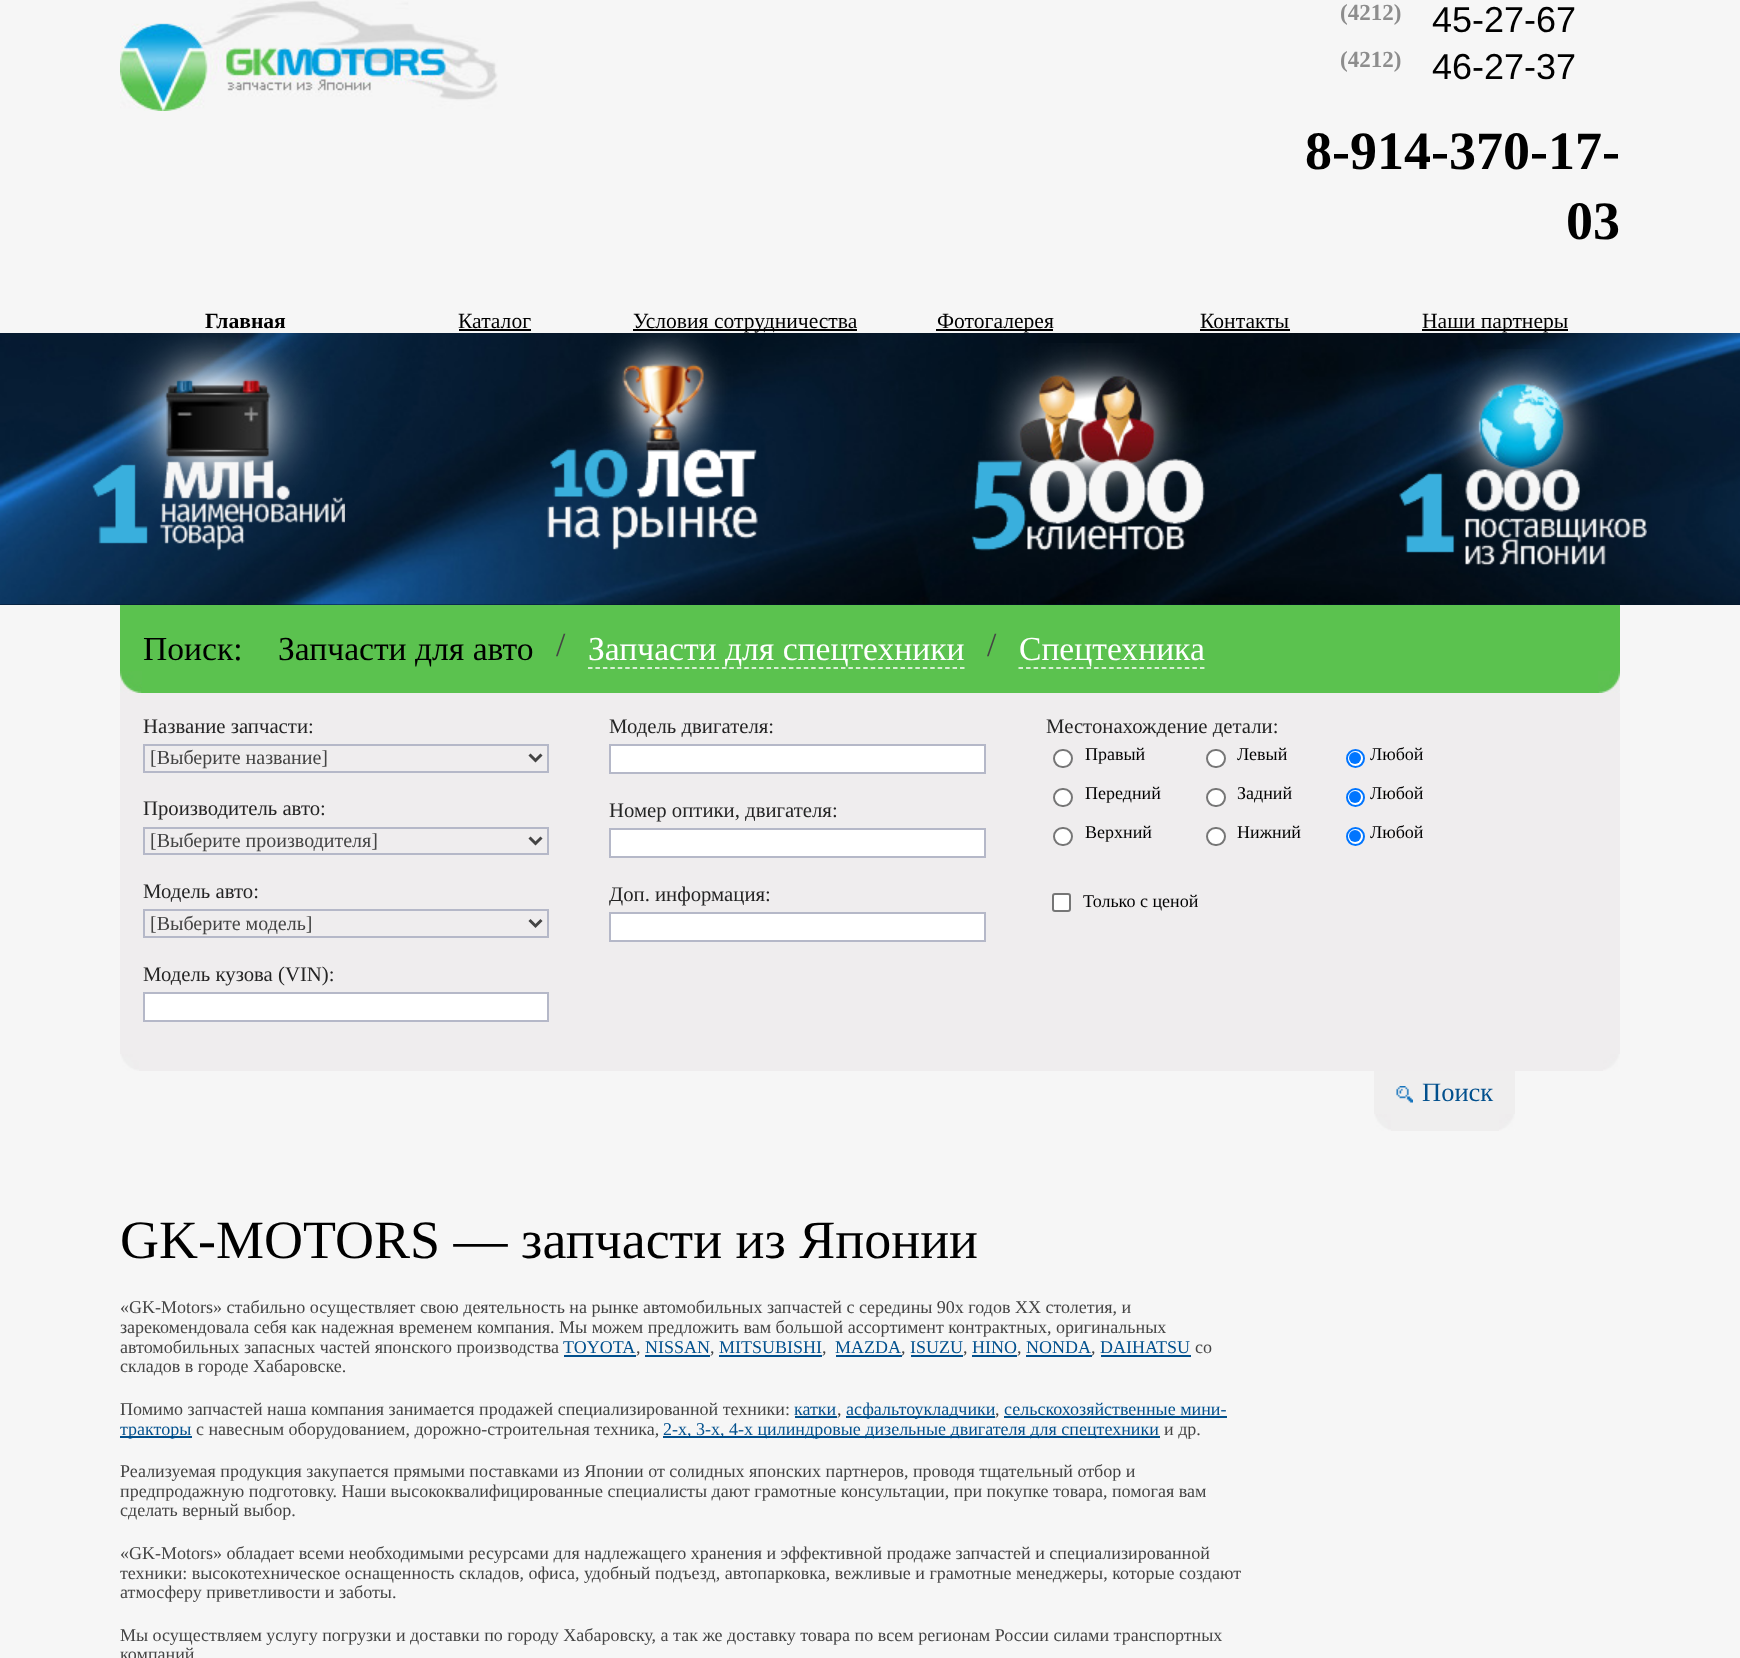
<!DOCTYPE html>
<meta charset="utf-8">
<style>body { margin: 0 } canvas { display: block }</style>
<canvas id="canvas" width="1740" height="1658"></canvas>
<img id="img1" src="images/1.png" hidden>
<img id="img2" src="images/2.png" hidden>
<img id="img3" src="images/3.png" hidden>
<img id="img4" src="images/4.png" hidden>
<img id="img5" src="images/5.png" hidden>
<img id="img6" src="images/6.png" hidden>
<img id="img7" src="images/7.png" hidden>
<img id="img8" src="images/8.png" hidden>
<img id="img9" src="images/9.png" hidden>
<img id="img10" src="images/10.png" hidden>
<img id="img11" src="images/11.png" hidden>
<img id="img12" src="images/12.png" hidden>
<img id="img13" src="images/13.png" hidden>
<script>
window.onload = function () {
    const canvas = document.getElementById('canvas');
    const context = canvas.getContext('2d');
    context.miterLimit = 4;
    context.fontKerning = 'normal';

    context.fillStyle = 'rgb(246, 246, 246)';
    context.fillRect(0, 0, 1740, 1658);
    context.drawImage(document.getElementById('img1'), 120, 0, 378, 111);
    context.fillStyle = 'rgb(0, 0, 0)';
    context.fillRect(459, 329, 72, 2);
    context.fillRect(633, 329, 224, 2);
    context.fillRect(936, 329, 117, 2);
    context.fillRect(1200, 329, 90, 2);
    context.fillRect(1422, 329, 146, 2);
    context.fillStyle = 'rgb(5, 23, 43)';
    context.fillRect(0, 604, 1740, 1);
    context.drawImage(document.getElementById('img2'), 0, 333, 1740, 272);
    context.drawImage(document.getElementById('img3'), 92, 333, 253, 218);
    context.drawImage(document.getElementById('img4'), 547, 333, 211, 217);
    context.drawImage(document.getElementById('img5'), 971, 343, 234, 208);
    context.drawImage(document.getElementById('img6'), 1399, 349, 248, 217);
    context.fillStyle = 'rgb(91, 194, 79)';
    context.fillRect(120, 605, 1500, 88);
    context.beginPath();
    context.moveTo(588, 668);
    context.lineTo(964.5, 668);
    context.strokeStyle = 'rgb(255, 255, 255)';
    context.lineWidth = 1.5;
    context.setLineDash([4.5, 2.94]);
    context.stroke();
    context.beginPath();
    context.moveTo(1018.5, 668);
    context.lineTo(1204.5, 668);
    context.setLineDash([4.5, 3.06]);
    context.stroke();
    context.drawImage(document.getElementById('img7'), 120, 671, 22, 22);
    context.drawImage(document.getElementById('img8'), 1598, 671, 22, 22);
    context.fillStyle = 'rgb(239, 237, 238)';
    context.fillRect(120, 693, 1500, 378);
    context.strokeStyle = 'rgb(181, 184, 200)';
    context.lineWidth = 2;
    context.setLineDash([]);
    context.strokeRect(144, 745, 404, 27);
    context.beginPath();
    context.moveTo(529.5, 754.5);
    context.lineTo(535.5, 760.5);
    context.lineTo(541.5, 754.5);
    context.strokeStyle = 'rgb(68, 68, 68)';
    context.lineWidth = 3;
    context.stroke();
    context.strokeStyle = 'rgb(181, 184, 200)';
    context.lineWidth = 2;
    context.strokeRect(144, 828, 404, 26);
    context.beginPath();
    context.moveTo(529.5, 837.5);
    context.lineTo(535.5, 843.5);
    context.lineTo(541.5, 837.5);
    context.strokeStyle = 'rgb(68, 68, 68)';
    context.lineWidth = 3;
    context.stroke();
    context.strokeStyle = 'rgb(181, 184, 200)';
    context.lineWidth = 2;
    context.strokeRect(144, 910, 404, 27);
    context.beginPath();
    context.moveTo(529.5, 920);
    context.lineTo(535.5, 926);
    context.lineTo(541.5, 920);
    context.strokeStyle = 'rgb(68, 68, 68)';
    context.lineWidth = 3;
    context.stroke();
    context.fillStyle = 'rgb(255, 255, 255)';
    context.beginPath();
    context.rect(144, 993, 404, 28);
    context.fill();
    context.strokeStyle = 'rgb(181, 184, 200)';
    context.lineWidth = 2;
    context.stroke();
    context.beginPath();
    context.rect(610, 745, 375, 28);
    context.fill();
    context.stroke();
    context.beginPath();
    context.rect(610, 829, 375, 28);
    context.fill();
    context.stroke();
    context.beginPath();
    context.rect(610, 913, 375, 28);
    context.fill();
    context.stroke();
    context.beginPath();
    context.roundRect(1054, 750, 18, 17, 8.5);
    context.fill();
    context.strokeStyle = 'rgb(118, 118, 118)';
    context.stroke();
    context.beginPath();
    context.roundRect(1207, 750, 18, 17, 8.5);
    context.fill();
    context.stroke();
    context.beginPath();
    context.arc(1355.5, 758.5, 8.5, 0, 2 * Math.PI);
    context.fill();
    context.strokeStyle = 'rgb(0, 117, 255)';
    context.stroke();
    context.fillStyle = 'rgb(0, 117, 255)';
    context.beginPath();
    context.arc(1355, 758, 6, 0, 2 * Math.PI);
    context.fill();
    context.fillStyle = 'rgb(255, 255, 255)';
    context.beginPath();
    context.roundRect(1054, 789, 18, 17, 8.5);
    context.fill();
    context.strokeStyle = 'rgb(118, 118, 118)';
    context.stroke();
    context.beginPath();
    context.roundRect(1207, 789, 18, 17, 8.5);
    context.fill();
    context.stroke();
    context.beginPath();
    context.arc(1355.5, 797.5, 8.5, 0, 2 * Math.PI);
    context.fill();
    context.strokeStyle = 'rgb(0, 117, 255)';
    context.stroke();
    context.fillStyle = 'rgb(0, 117, 255)';
    context.beginPath();
    context.arc(1355, 797, 6, 0, 2 * Math.PI);
    context.fill();
    context.fillStyle = 'rgb(255, 255, 255)';
    context.beginPath();
    context.roundRect(1054, 828, 18, 17, 8.5);
    context.fill();
    context.strokeStyle = 'rgb(118, 118, 118)';
    context.stroke();
    context.beginPath();
    context.roundRect(1207, 828, 18, 17, 8.5);
    context.fill();
    context.stroke();
    context.beginPath();
    context.arc(1355.5, 836.5, 8.5, 0, 2 * Math.PI);
    context.fill();
    context.strokeStyle = 'rgb(0, 117, 255)';
    context.stroke();
    context.fillStyle = 'rgb(0, 117, 255)';
    context.beginPath();
    context.arc(1355, 836, 6, 0, 2 * Math.PI);
    context.fill();
    context.fillStyle = 'rgb(255, 255, 255)';
    context.beginPath();
    context.roundRect(1053, 894, 17, 17, 2);
    context.fill();
    context.strokeStyle = 'rgb(118, 118, 118)';
    context.stroke();
    context.drawImage(document.getElementById('img9'), 120, 1054, 19, 17);
    context.drawImage(document.getElementById('img10'), 1603, 1054, 17, 17);
    context.fillStyle = 'rgb(239, 238, 238)';
    context.fillRect(1374, 1071, 141, 38);
    context.drawImage(document.getElementById('img11'), 1396, 1086, 17, 17);
    context.fillRect(1374, 1109, 141, 22);
    context.drawImage(document.getElementById('img12'), 1374, 1114, 17, 17);
    context.drawImage(document.getElementById('img13'), 1499, 1114, 16, 17);
    context.fillStyle = 'rgb(2, 80, 141)';
    context.fillRect(564, 1355, 72, 2);
    context.fillRect(645, 1355, 65, 2);
    context.fillRect(719, 1355, 103, 2);
    context.fillRect(836, 1355, 66, 2);
    context.fillRect(911, 1355, 52, 2);
    context.fillRect(972, 1355, 45, 2);
    context.fillRect(1026, 1355, 66, 2);
    context.fillRect(1101, 1355, 90, 2);
    context.fillRect(795, 1416, 42, 2);
    context.fillRect(846, 1416, 149, 2);
    context.fillRect(1004, 1416, 223, 2);
    context.fillRect(120, 1436, 72, 2);
    context.fillRect(663, 1436, 497, 2);
    context.font = 'bold 23px Liberation Serif';
    context.fillStyle = 'rgb(141, 141, 141)';
    context.fillText('(4212)', 1340, 20);
    context.font = '36px Liberation Sans';
    context.fillStyle = 'rgb(0, 0, 0)';
    context.fillText('45-27-67', 1432, 32);
    context.font = 'bold 23px Liberation Serif';
    context.fillStyle = 'rgb(141, 141, 141)';
    context.fillText('(4212)', 1340, 67);
    context.font = '36px Liberation Sans';
    context.fillStyle = 'rgb(0, 0, 0)';
    context.fillText('46-27-37', 1432, 79);
    context.font = 'bold 54px Liberation Serif';
    context.fillText('8-914-370-17-', 1305, 169);
    context.fillText('03', 1566, 239);
    context.font = 'bold 21.6px Liberation Serif';
    context.fillText('Главная', 205, 328);
    context.font = '21.6px Liberation Serif';
    context.fillText('Каталог', 458, 328);
    context.fillText('Условия сотрудничества', 633, 328);
    context.fillText('Фотогалерея', 937, 328);
    context.fillText('Контакты', 1200, 328);
    context.fillText('Наши партнеры', 1422, 328);
    context.font = '33.6px Liberation Serif';
    context.fillText('Поиск:', 143, 660);
    context.fillText('Запчасти для авто', 278, 660);
    context.fillStyle = 'rgb(68, 68, 68)';
    context.fillText('/', 556, 656);
    context.fillStyle = 'rgb(255, 255, 255)';
    context.fillText('Запчасти для спецтехники', 588, 660);
    context.fillStyle = 'rgb(68, 68, 68)';
    context.fillText('/', 987, 656);
    context.fillStyle = 'rgb(255, 255, 255)';
    context.fillText('Спецтехника', 1019, 660);
    context.font = '20.75px Liberation Serif';
    context.fillStyle = 'rgb(36, 36, 36)';
    context.fillText('Название запчасти:', 143, 733);
    context.font = '20px Liberation Serif';
    context.fillStyle = 'rgb(68, 68, 68)';
    context.fillText('[Выберите название]', 150, 764);
    context.font = '20.75px Liberation Serif';
    context.fillStyle = 'rgb(36, 36, 36)';
    context.fillText('Производитель авто:', 143, 815);
    context.font = '20px Liberation Serif';
    context.fillStyle = 'rgb(68, 68, 68)';
    context.fillText('[Выберите производителя]', 150, 847);
    context.font = '20.75px Liberation Serif';
    context.fillStyle = 'rgb(36, 36, 36)';
    context.fillText('Модель авто:', 143, 898);
    context.font = '20px Liberation Serif';
    context.fillStyle = 'rgb(68, 68, 68)';
    context.fillText('[Выберите модель]', 150, 930);
    context.font = '20.75px Liberation Serif';
    context.fillStyle = 'rgb(36, 36, 36)';
    context.fillText('Модель кузова (VIN):', 143, 981);
    context.fillText('Модель двигателя:', 609, 733);
    context.fillText('Номер оптики, двигателя:', 609, 817);
    context.fillText('Доп. информация:', 609, 901);
    context.fillText('Местонахождение детали:', 1046, 733);
    context.font = '18px Liberation Serif';
    context.fillStyle = 'rgb(0, 0, 0)';
    context.fillText('Правый', 1085, 760);
    context.fillText('Левый', 1237, 760);
    context.fillText('Любой', 1370, 760);
    context.fillText('Передний', 1085, 799);
    context.fillText('Задний', 1237, 799);
    context.fillText('Любой', 1370, 799);
    context.fillText('Верхний', 1085, 838);
    context.fillText('Нижний', 1237, 838);
    context.fillText('Любой', 1370, 838);
    context.fillText('Только с ценой', 1083, 907);
    context.font = '26.5px Liberation Serif';
    context.fillStyle = 'rgb(2, 80, 141)';
    context.fillText('Поиск', 1422, 1101);
    context.font = '54px Liberation Serif';
    context.fillStyle = 'rgb(0, 0, 0)';
    context.fillText('GK-MOTORS — запчасти из Японии', 120, 1258);
    context.font = '18px Liberation Serif';
    context.fillStyle = 'rgb(68, 68, 68)';
    context.fillText('«GK-Motors» стабильно осуществляет свою деятельность на рынке автомобильных запчастей с середины 90х годов ХХ столетия, и', 120, 1313);
    context.fillText('зарекомендовала себя как надежная временем компания. Мы можем предложить вам большой ассортимент контрактных, оригинальных', 120, 1333);
    context.fillText('автомобильных запасных частей японского производства', 120, 1353);
    context.fillStyle = 'rgb(2, 80, 141)';
    context.fillText('TOYOTA', 563, 1353);
    context.fillStyle = 'rgb(68, 68, 68)';
    context.fillText(',', 636, 1353);
    context.fillStyle = 'rgb(2, 80, 141)';
    context.fillText('NISSAN', 645, 1353);
    context.fillStyle = 'rgb(68, 68, 68)';
    context.fillText(',', 710, 1353);
    context.fillStyle = 'rgb(2, 80, 141)';
    context.fillText('MITSUBISHI', 719, 1353);
    context.fillStyle = 'rgb(68, 68, 68)';
    context.fillText(',', 822, 1353);
    context.fillStyle = 'rgb(2, 80, 141)';
    context.fillText('MAZDA', 835, 1353);
    context.fillStyle = 'rgb(68, 68, 68)';
    context.fillText(',', 901, 1353);
    context.fillStyle = 'rgb(2, 80, 141)';
    context.fillText('ISUZU', 910, 1353);
    context.fillStyle = 'rgb(68, 68, 68)';
    context.fillText(',', 963, 1353);
    context.fillStyle = 'rgb(2, 80, 141)';
    context.fillText('HINO', 972, 1353);
    context.fillStyle = 'rgb(68, 68, 68)';
    context.fillText(',', 1017, 1353);
    context.fillStyle = 'rgb(2, 80, 141)';
    context.fillText('NONDA', 1026, 1353);
    context.fillStyle = 'rgb(68, 68, 68)';
    context.fillText(',', 1091, 1353);
    context.fillStyle = 'rgb(2, 80, 141)';
    context.fillText('DAIHATSU', 1100, 1353);
    context.fillStyle = 'rgb(68, 68, 68)';
    context.fillText('со', 1195, 1353);
    context.fillText('складов в городе Хабаровске.', 120, 1372);
    context.fillText('Помимо запчастей наша компания занимается продажей специализированной техники:', 120, 1415);
    context.fillStyle = 'rgb(2, 80, 141)';
    context.fillText('катки', 794, 1415);
    context.fillStyle = 'rgb(68, 68, 68)';
    context.fillText(',', 837, 1415);
    context.fillStyle = 'rgb(2, 80, 141)';
    context.fillText('асфальтоукладчики', 846, 1415);
    context.fillStyle = 'rgb(68, 68, 68)';
    context.fillText(',', 995, 1415);
    context.fillStyle = 'rgb(2, 80, 141)';
    context.fillText('сельскохозяйственные мини-', 1004, 1415);
    context.fillText('тракторы', 120, 1435);
    context.fillStyle = 'rgb(68, 68, 68)';
    context.fillText('с навесным оборудованием, дорожно-строительная техника,', 196, 1435);
    context.fillStyle = 'rgb(2, 80, 141)';
    context.fillText('2-х, 3-х, 4-х цилиндровые дизельные двигателя для спецтехники', 663, 1435);
    context.fillStyle = 'rgb(68, 68, 68)';
    context.fillText('и др.', 1164, 1435);
    context.fillText('Реализуемая продукция закупается прямыми поставками из Японии от солидных японских партнеров, проводя тщательный отбор и', 120, 1477);
    context.fillText('предпродажную подготовку. Наши высококвалифицированные специалисты дают грамотные консультации, при покупке товара, помогая вам', 120, 1497);
    context.fillText('сделать верный выбор.', 120, 1516);
    context.fillText('«GK-Motors» обладает всеми необходимыми ресурсами для надлежащего хранения и эффективной продаже запчастей и специализированной', 120, 1559);
    context.fillText('техники: высокотехническое оснащенность складов, офиса, удобный подъезд, автопарковка, вежливые и грамотные менеджеры, которые создают', 120, 1579);
    context.fillText('атмосферу приветливости и заботы.', 120, 1598);
    context.fillText('Мы осуществляем услугу погрузки и доставки по городу Хабаровску, а так же доставку товара по всем регионам России силами транспортных', 120, 1641);
    context.fillText('компаний', 120, 1660);
};
</script>
